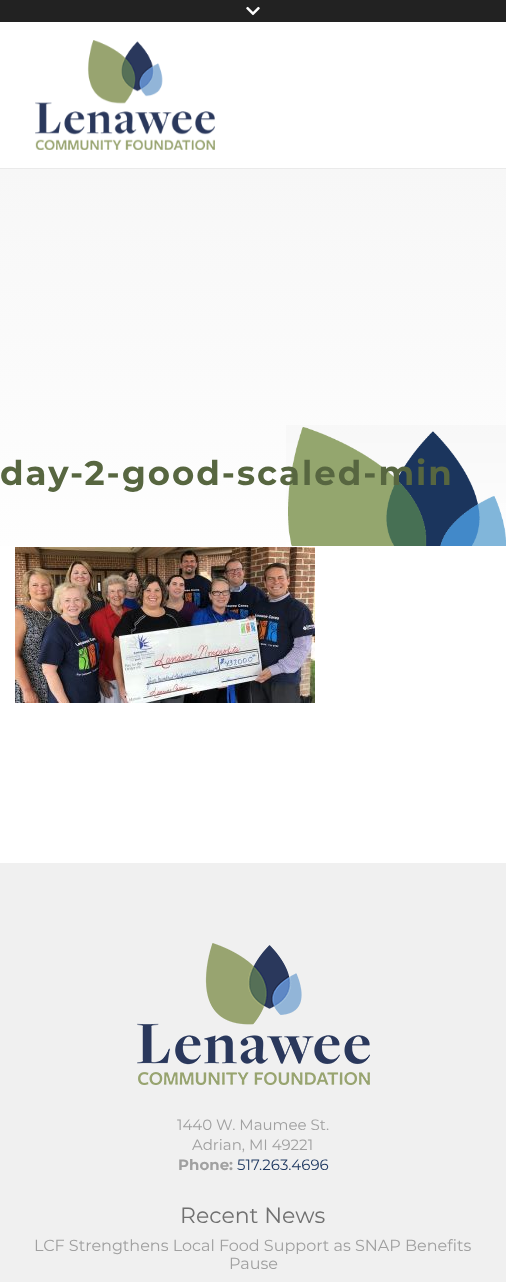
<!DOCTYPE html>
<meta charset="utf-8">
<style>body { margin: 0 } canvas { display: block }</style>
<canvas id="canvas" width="506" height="1282"></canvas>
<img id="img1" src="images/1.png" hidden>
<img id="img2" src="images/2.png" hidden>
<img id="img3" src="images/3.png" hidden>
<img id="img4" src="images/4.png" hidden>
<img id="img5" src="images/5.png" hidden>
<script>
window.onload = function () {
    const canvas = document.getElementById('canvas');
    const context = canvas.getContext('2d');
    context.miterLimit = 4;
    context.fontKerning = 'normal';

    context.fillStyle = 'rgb(255, 255, 255)';
    context.fillRect(0, 0, 506, 1282);
    context.fillStyle = 'rgb(234, 234, 234)';
    context.fillRect(0, 168, 506, 1);
    context.fillStyle = 'rgb(34, 34, 34)';
    context.fillRect(0, 0, 506, 22);
    context.drawImage(document.getElementById('img1'), 246, 6, 14, 10);
    context.drawImage(document.getElementById('img2'), 35, 40, 180, 110);
    context.drawImage(document.getElementById('img3'), 0, 169, 506, 377);
    context.drawImage(document.getElementById('img4'), 15, 547, 300, 156);
    context.fillStyle = 'rgb(240, 240, 240)';
    context.fillRect(0, 863, 506, 419);
    context.drawImage(document.getElementById('img5'), 137, 943, 233, 142);
    context.letterSpacing = '2px';
    context.font = 'bold 34px Montserrat';
    context.fillStyle = 'rgb(87, 102, 64)';
    context.fillText('day-2-good-scaled-min', 0, 485);
    context.letterSpacing = '0px';
    context.font = '15px Montserrat';
    context.fillStyle = 'rgb(160, 160, 160)';
    context.fillText('1440 W. Maumee St.', 177, 1130);
    context.fillText('Adrian, MI 49221', 192, 1150);
    context.font = 'bold 15px Montserrat';
    context.fillText('Phone:', 178, 1170);
    context.font = '15px Montserrat';
    context.fillStyle = 'rgb(28, 54, 95)';
    context.fillText('517.263.4696', 237, 1170);
    context.font = '22px Montserrat';
    context.fillStyle = 'rgb(112, 112, 112)';
    context.fillText('Recent News', 180, 1223);
    context.font = '16px Montserrat';
    context.fillStyle = 'rgb(160, 160, 160)';
    context.fillText('LCF Strengthens Local Food Support as SNAP Benefits', 34, 1251);
    context.fillText('Pause', 229, 1269);
};
</script>
